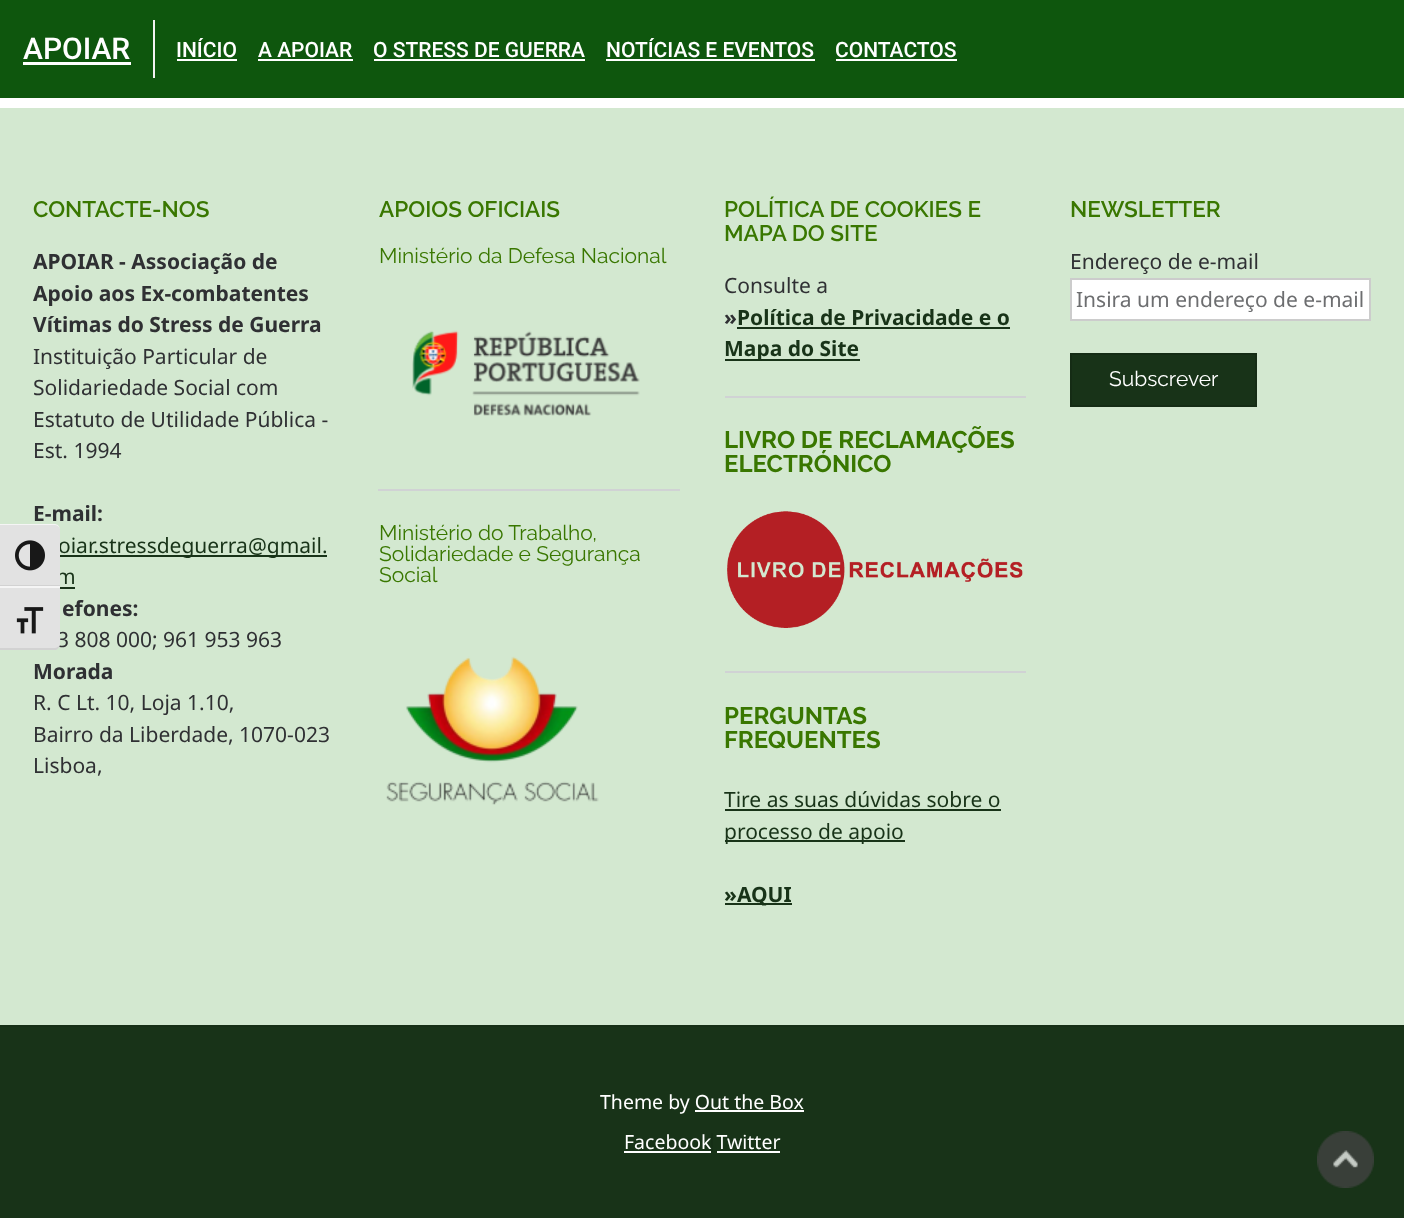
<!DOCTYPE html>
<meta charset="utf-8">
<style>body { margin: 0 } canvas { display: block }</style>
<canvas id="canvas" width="1404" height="1218"></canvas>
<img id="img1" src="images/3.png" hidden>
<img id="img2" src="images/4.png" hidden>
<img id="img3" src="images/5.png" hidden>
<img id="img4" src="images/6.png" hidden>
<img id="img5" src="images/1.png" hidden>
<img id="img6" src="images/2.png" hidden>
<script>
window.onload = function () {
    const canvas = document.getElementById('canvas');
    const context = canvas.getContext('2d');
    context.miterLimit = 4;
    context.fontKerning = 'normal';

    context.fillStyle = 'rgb(255, 255, 255)';
    context.fillRect(0, 0, 1404, 1218);
    context.fillStyle = 'rgb(14, 86, 13)';
    context.fillRect(0, 0, 1404, 98);
    context.fillStyle = 'rgb(255, 255, 255)';
    context.fillRect(23, 62, 108, 3);
    context.fillStyle = 'rgb(242, 242, 242)';
    context.fillRect(153, 20, 2, 58);
    context.fillStyle = 'rgb(255, 255, 255)';
    context.fillRect(177, 59, 60, 2);
    context.fillRect(258, 59, 95, 2);
    context.fillRect(374, 59, 211, 2);
    context.fillRect(606, 59, 209, 2);
    context.fillRect(836, 59, 121, 2);
    context.fillStyle = 'rgb(211, 232, 208)';
    context.fillRect(0, 108, 1404, 917);
    context.fillStyle = 'rgb(24, 51, 24)';
    context.fillRect(60, 555, 267, 2);
    context.fillRect(60, 587, 15, 2);
    context.drawImage(document.getElementById('img1'), 412, 330, 228, 86);
    context.fillStyle = 'rgb(208, 210, 212)';
    context.fillRect(378, 489, 302, 2);
    context.drawImage(document.getElementById('img2'), 386, 656, 213, 149);
    context.fillStyle = 'rgb(24, 51, 24)';
    context.fillRect(737, 327, 273, 2);
    context.fillRect(725, 359, 135, 2);
    context.fillStyle = 'rgb(208, 210, 212)';
    context.fillRect(725, 396, 301, 2);
    context.drawImage(document.getElementById('img3'), 727, 511, 296, 117);
    context.fillRect(725, 671, 301, 2);
    context.fillStyle = 'rgb(24, 51, 24)';
    context.fillRect(725, 809, 276, 2);
    context.fillRect(725, 840, 180, 2);
    context.fillRect(725, 903, 67, 2);
    context.fillStyle = 'rgb(255, 255, 255)';
    context.beginPath();
    context.rect(1071, 279, 299, 41);
    context.fill();
    context.strokeStyle = 'rgb(204, 204, 204)';
    context.lineWidth = 2;
    context.stroke();
    context.fillStyle = 'rgb(24, 51, 24)';
    context.beginPath();
    context.rect(1071, 354, 185, 52);
    context.fill();
    context.strokeStyle = 'rgb(21, 44, 21)';
    context.stroke();
    context.fillRect(0, 1027, 1404, 191);
    context.fillStyle = 'rgb(22, 47, 22)';
    context.fillRect(0, 1025, 1404, 2);
    context.fillStyle = 'rgb(255, 255, 255)';
    context.fillRect(695, 1110, 109, 2);
    context.fillStyle = 'rgb(22, 47, 22)';
    context.fillRect(711, 1133, 2, 19);
    context.fillStyle = 'rgb(255, 255, 255)';
    context.fillRect(624, 1151, 87, 2);
    context.fillRect(717, 1151, 63, 2);
    context.drawImage(document.getElementById('img4'), 1317, 1131, 57, 57);
    context.font = '500 30px Roboto';
    context.fillText('APOIAR', 23, 59);
    context.font = '500 21px Roboto';
    context.fillText('INÍCIO', 176, 57);
    context.fillText('A APOIAR', 258, 57);
    context.fillText('O STRESS DE GUERRA', 373, 57);
    context.fillText('NOTÍCIAS E EVENTOS', 606, 57);
    context.fillText('CONTACTOS', 835, 57);
    context.font = '600 22.5px Raleway';
    context.fillStyle = 'rgb(57, 119, 0)';
    context.fillText('CONTACTE-NOS', 33, 217);
    context.font = 'bold 21px Noto Sans';
    context.fillStyle = 'rgb(47, 48, 51)';
    context.fillText('APOIAR - Associação de', 33, 269);
    context.fillText('Apoio aos Ex-combatentes', 33, 301);
    context.fillText('Vítimas do Stress de Guerra', 33, 332);
    context.font = '21px Noto Sans';
    context.fillText('Instituição Particular de', 33, 364);
    context.fillText('Solidariedade Social com', 33, 395);
    context.fillText('Estatuto de Utilidade Pública -', 33, 427);
    context.fillText('Est. 1994', 33, 458);
    context.font = 'bold 21px Noto Sans';
    context.fillText('E-mail:', 33, 521);
    context.font = '21px Noto Sans';
    context.fillStyle = 'rgb(24, 51, 24)';
    context.fillText('oiar.stressdeguerra@gmail.', 58, 553);
    context.fillText('m', 56, 584);
    context.fillStyle = 'rgb(226, 226, 226)';
    context.beginPath();
    context.roundRect(0, 524, 60, 63, [0, 6, 0, 0]);
    context.fill();
    context.drawImage(document.getElementById('img5'), 15, 540, 30, 31);
    context.fillStyle = 'rgb(210, 210, 210)';
    context.fillRect(0, 585, 60, 1);
    context.fillStyle = 'rgb(245, 245, 245)';
    context.beginPath();
    context.moveTo(0, 525);
    context.lineTo(54, 525);
    context.bezierCurveTo(57, 525, 60, 527, 60, 530);
    context.bezierCurveTo(60, 526, 57, 524, 54, 524);
    context.lineTo(0, 524);
    context.closePath();
    context.fill();
    context.font = 'bold 21px Noto Sans';
    context.fillStyle = 'rgb(47, 48, 51)';
    context.fillText('efones:', 62, 616);
    context.font = '21px Noto Sans';
    context.fillText('3 808 000; 961 953 963', 57, 647);
    context.fillStyle = 'rgb(226, 226, 226)';
    context.beginPath();
    context.roundRect(0, 587, 60, 63, [0, 0, 6, 0]);
    context.fill();
    context.drawImage(document.getElementById('img6'), 16, 607, 28, 27);
    context.fillStyle = 'rgb(210, 210, 210)';
    context.beginPath();
    context.moveTo(56, 650);
    context.bezierCurveTo(58, 649, 60, 646, 60, 644);
    context.bezierCurveTo(60, 646, 57, 648, 54, 648);
    context.lineTo(0, 648);
    context.lineTo(0, 650);
    context.closePath();
    context.fill();
    context.fillStyle = 'rgb(245, 245, 245)';
    context.fillRect(0, 586, 60, 2);
    context.font = 'bold 21px Noto Sans';
    context.fillStyle = 'rgb(47, 48, 51)';
    context.fillText('Morada', 33, 679);
    context.font = '21px Noto Sans';
    context.fillText('R. C Lt. 10, Loja 1.10,', 33, 710);
    context.fillText('Bairro da Liberdade, 1070-023', 33, 742);
    context.fillText('Lisboa,', 33, 773);
    context.font = '600 22.5px Raleway';
    context.fillStyle = 'rgb(57, 119, 0)';
    context.fillText('APOIOS OFICIAIS', 379, 217);
    context.font = '21px Raleway';
    context.fillText('Ministério da Defesa Nacional', 379, 263);
    context.fillText('Ministério do Trabalho,', 379, 540);
    context.fillText('Solidariedade e Segurança', 379, 561);
    context.fillText('Social', 379, 582);
    context.font = '600 22.5px Raleway';
    context.fillText('POLÍTICA DE COOKIES E', 724, 217);
    context.fillText('MAPA DO SITE', 724, 241);
    context.font = '21px Noto Sans';
    context.fillStyle = 'rgb(47, 48, 51)';
    context.fillText('Consulte a', 724, 293);
    context.font = 'bold 21px Noto Sans';
    context.fillText('»', 724, 325);
    context.fillStyle = 'rgb(24, 51, 24)';
    context.fillText('Política de Privacidade e o', 737, 325);
    context.fillText('Mapa do Site', 724, 356);
    context.font = 'bold 24px Raleway';
    context.fillStyle = 'rgb(57, 119, 0)';
    context.fillText('LIVRO DE RECLAMAÇÕES', 724, 448);
    context.fillText('ELECTRÓNICO', 724, 472);
    context.fillText('PERGUNTAS', 724, 724);
    context.fillText('FREQUENTES', 724, 748);
    context.font = '21px Noto Sans';
    context.fillStyle = 'rgb(24, 51, 24)';
    context.fillText('Tire as suas dúvidas sobre o', 724, 807);
    context.fillText('processo de apoio', 724, 839);
    context.font = 'bold 21px Noto Sans';
    context.fillText('»AQUI', 724, 902);
    context.font = '600 22.5px Raleway';
    context.fillStyle = 'rgb(57, 119, 0)';
    context.fillText('NEWSLETTER', 1070, 217);
    context.font = '21px Noto Sans';
    context.fillStyle = 'rgb(47, 48, 51)';
    context.fillText('Endereço de e-mail', 1070, 269);
    context.fillStyle = 'rgb(109, 110, 112)';
    context.fillText('Insira um endereço de e-mail', 1076, 307);
    context.font = '21px Raleway';
    context.fillStyle = 'rgb(255, 255, 255)';
    context.fillText('Subscrever', 1109, 386);
    context.font = '19.5px Noto Sans';
    context.fillText('Theme by Out the Box', 600, 1109);
    context.fillText('Facebook Twitter', 624, 1149);
};
</script>
